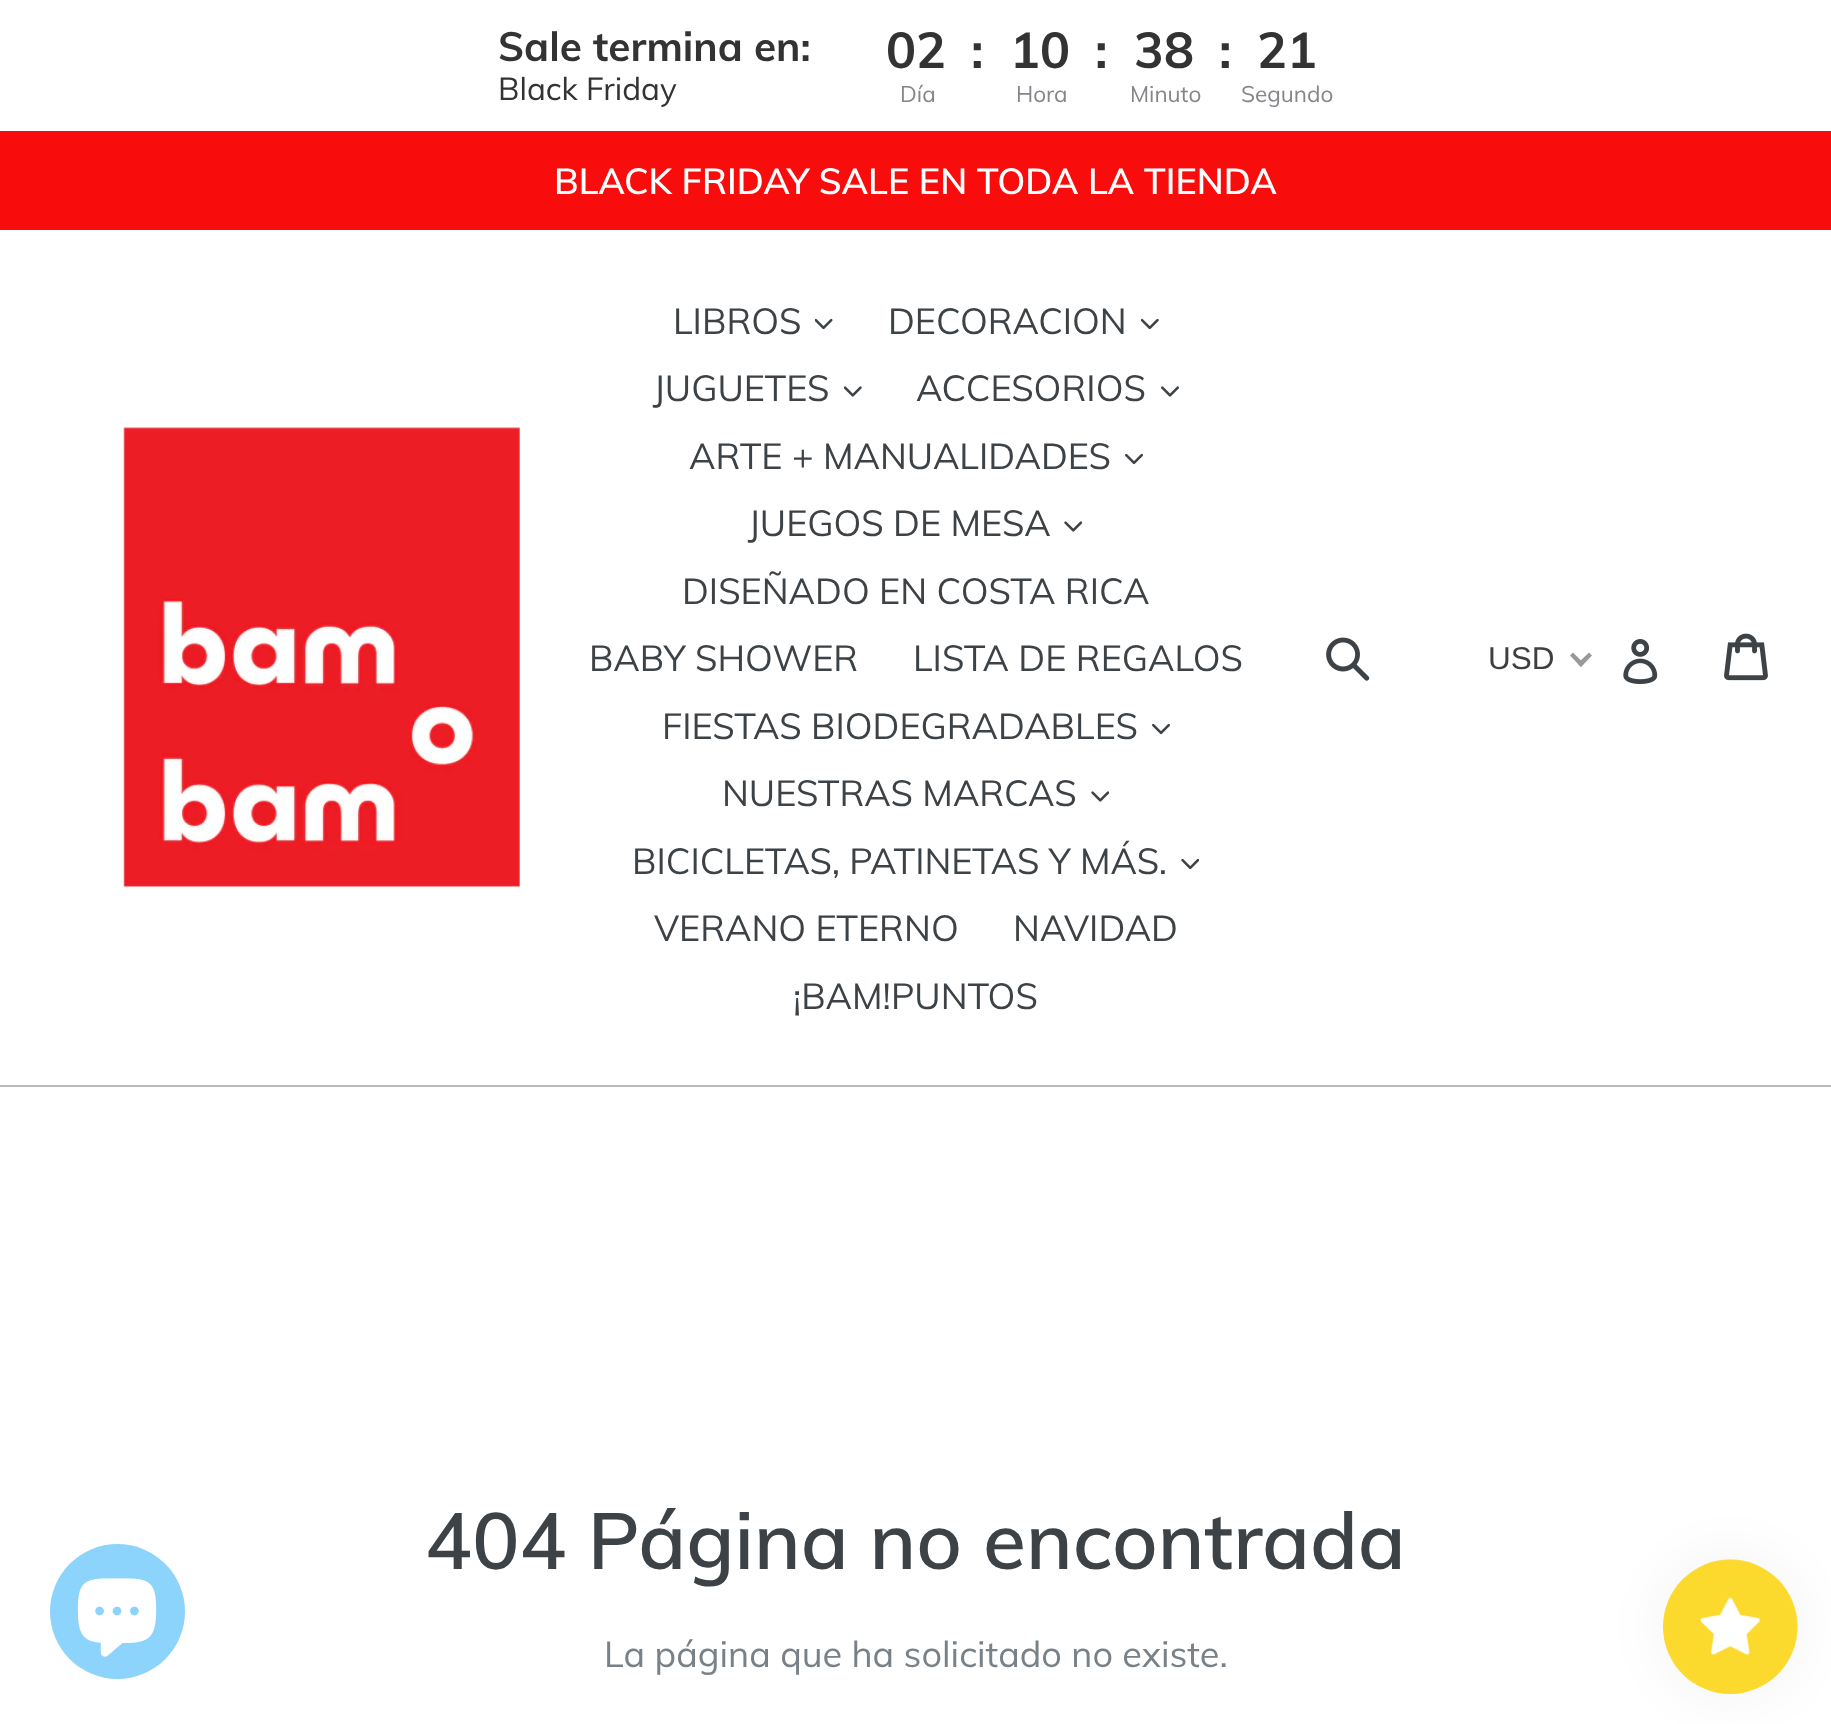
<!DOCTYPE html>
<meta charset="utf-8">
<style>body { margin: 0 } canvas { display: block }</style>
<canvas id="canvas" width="1831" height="1724"></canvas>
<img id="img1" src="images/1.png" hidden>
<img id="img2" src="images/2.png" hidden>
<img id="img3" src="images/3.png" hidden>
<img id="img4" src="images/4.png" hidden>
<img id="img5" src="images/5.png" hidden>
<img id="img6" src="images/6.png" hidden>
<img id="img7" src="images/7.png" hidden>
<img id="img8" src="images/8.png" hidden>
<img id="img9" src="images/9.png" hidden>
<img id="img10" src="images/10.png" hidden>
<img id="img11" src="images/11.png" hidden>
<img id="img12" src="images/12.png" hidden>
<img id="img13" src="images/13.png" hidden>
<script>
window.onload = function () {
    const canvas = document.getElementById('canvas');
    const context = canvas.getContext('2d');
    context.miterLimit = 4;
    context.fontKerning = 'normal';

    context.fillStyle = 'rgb(255, 255, 255)';
    context.fillRect(0, 0, 1831, 1724);
    context.fillStyle = 'rgb(249, 12, 12)';
    context.fillRect(0, 131, 1831, 99);
    context.fillStyle = 'rgb(185, 186, 190)';
    context.fillRect(0, 1085, 1831, 2);
    context.drawImage(document.getElementById('img1'), 123, 427, 397, 460);
    context.drawImage(document.getElementById('img2'), 815, 318, 18, 12);
    context.drawImage(document.getElementById('img3'), 1141, 318, 18, 12);
    context.drawImage(document.getElementById('img4'), 844, 386, 18, 11);
    context.drawImage(document.getElementById('img5'), 1161, 386, 18, 11);
    context.drawImage(document.getElementById('img6'), 1125, 453, 18, 12);
    context.drawImage(document.getElementById('img7'), 1064, 521, 18, 11);
    context.drawImage(document.getElementById('img6'), 1152, 723, 18, 12);
    context.drawImage(document.getElementById('img7'), 1091, 791, 18, 11);
    context.drawImage(document.getElementById('img8'), 1181, 858, 18, 12);
    context.drawImage(document.getElementById('img9'), 1326, 637, 44, 44);
    context.fillStyle = 'rgb(153, 153, 153)';
    context.beginPath();
    context.moveTo(1589, 652.5);
    context.lineTo(1592, 655.5);
    context.lineTo(1581, 667);
    context.lineTo(1577.5, 663.5);
    context.closePath();
    context.fill();
    context.beginPath();
    context.moveTo(1573, 652.5);
    context.lineTo(1584, 663.5);
    context.lineTo(1581, 667);
    context.lineTo(1570, 655.5);
    context.closePath();
    context.fill();
    context.drawImage(document.getElementById('img10'), 1623, 639, 35, 45);
    context.drawImage(document.getElementById('img11'), 1724, 633, 44, 48);
    context.fillStyle = 'rgb(141, 212, 252)';
    context.beginPath();
    context.arc(117.5, 1611.5, 67.5, 0, 2 * Math.PI);
    context.fill();
    context.drawImage(document.getElementById('img12'), 77, 1578, 80, 79);
    context.fillStyle = 'rgba(0, 0, 0, 0.05)';
    context.filter = 'blur(28px)';
    context.beginPath();
    context.roundRect(1663, 1559, 135, 135, 67.5);
    context.fill();
    context.filter = 'none';
    context.drawImage(document.getElementById('img13'), 1662, 1559, 136, 136);
    context.font = 'bold 40.5px Muli';
    context.fillStyle = 'rgb(51, 51, 51)';
    context.fillText('Sale termina en:', 498, 61);
    context.font = '31.5px Muli';
    context.fillText('Black Friday', 498, 100);
    context.font = 'bold 50px Muli';
    context.fillText('02', 886, 68);
    context.fillText(':', 971, 68);
    context.fillText('10', 1010, 68);
    context.fillText(':', 1095, 68);
    context.fillText('38', 1134, 68);
    context.fillText(':', 1219, 68);
    context.fillText('21', 1257, 68);
    context.font = '22.5px Muli';
    context.fillStyle = 'rgb(133, 134, 139)';
    context.fillText('Día', 900, 102);
    context.fillText('Hora', 1016, 102);
    context.fillText('Minuto', 1130, 102);
    context.fillText('Segundo', 1241, 102);
    context.font = '600 36px Muli';
    context.fillStyle = 'rgb(255, 255, 255)';
    context.fillText('BLACK FRIDAY SALE EN TODA LA TIENDA', 554, 194);
    context.font = '36px Muli';
    context.fillStyle = 'rgb(61, 66, 70)';
    context.fillText('LIBROS', 673, 334);
    context.fillText('DECORACION', 888, 334);
    context.fillText('JUGUETES', 653, 401);
    context.fillText('ACCESORIOS', 916, 401);
    context.fillText('ARTE + MANUALIDADES', 689, 469);
    context.fillText('JUEGOS DE MESA', 748, 536);
    context.fillText('DISEÑADO EN COSTA RICA', 682, 604);
    context.fillText('BABY SHOWER', 589, 671);
    context.fillText('LISTA DE REGALOS', 913, 671);
    context.fillText('FIESTAS BIODEGRADABLES', 662, 739);
    context.fillText('NUESTRAS MARCAS', 722, 806);
    context.fillText('BICICLETAS, PATINETAS Y MÁS.', 632, 874);
    context.fillText('VERANO ETERNO', 654, 941);
    context.fillText('NAVIDAD', 1013, 941);
    context.fillText('¡BAM!PUNTOS', 793, 1009);
    context.font = '31.5px Liberation Sans';
    context.fillStyle = 'rgb(64, 63, 63)';
    context.fillText('USD', 1488, 669);
    context.font = '600 78.75px Muli';
    context.fillStyle = 'rgb(61, 66, 70)';
    context.fillText('404 Página no encontrada', 425, 1569);
    context.font = '36px Muli';
    context.fillStyle = 'rgb(120, 129, 136)';
    context.fillText('La página que ha solicitado no existe.', 604, 1667);
};
</script>
